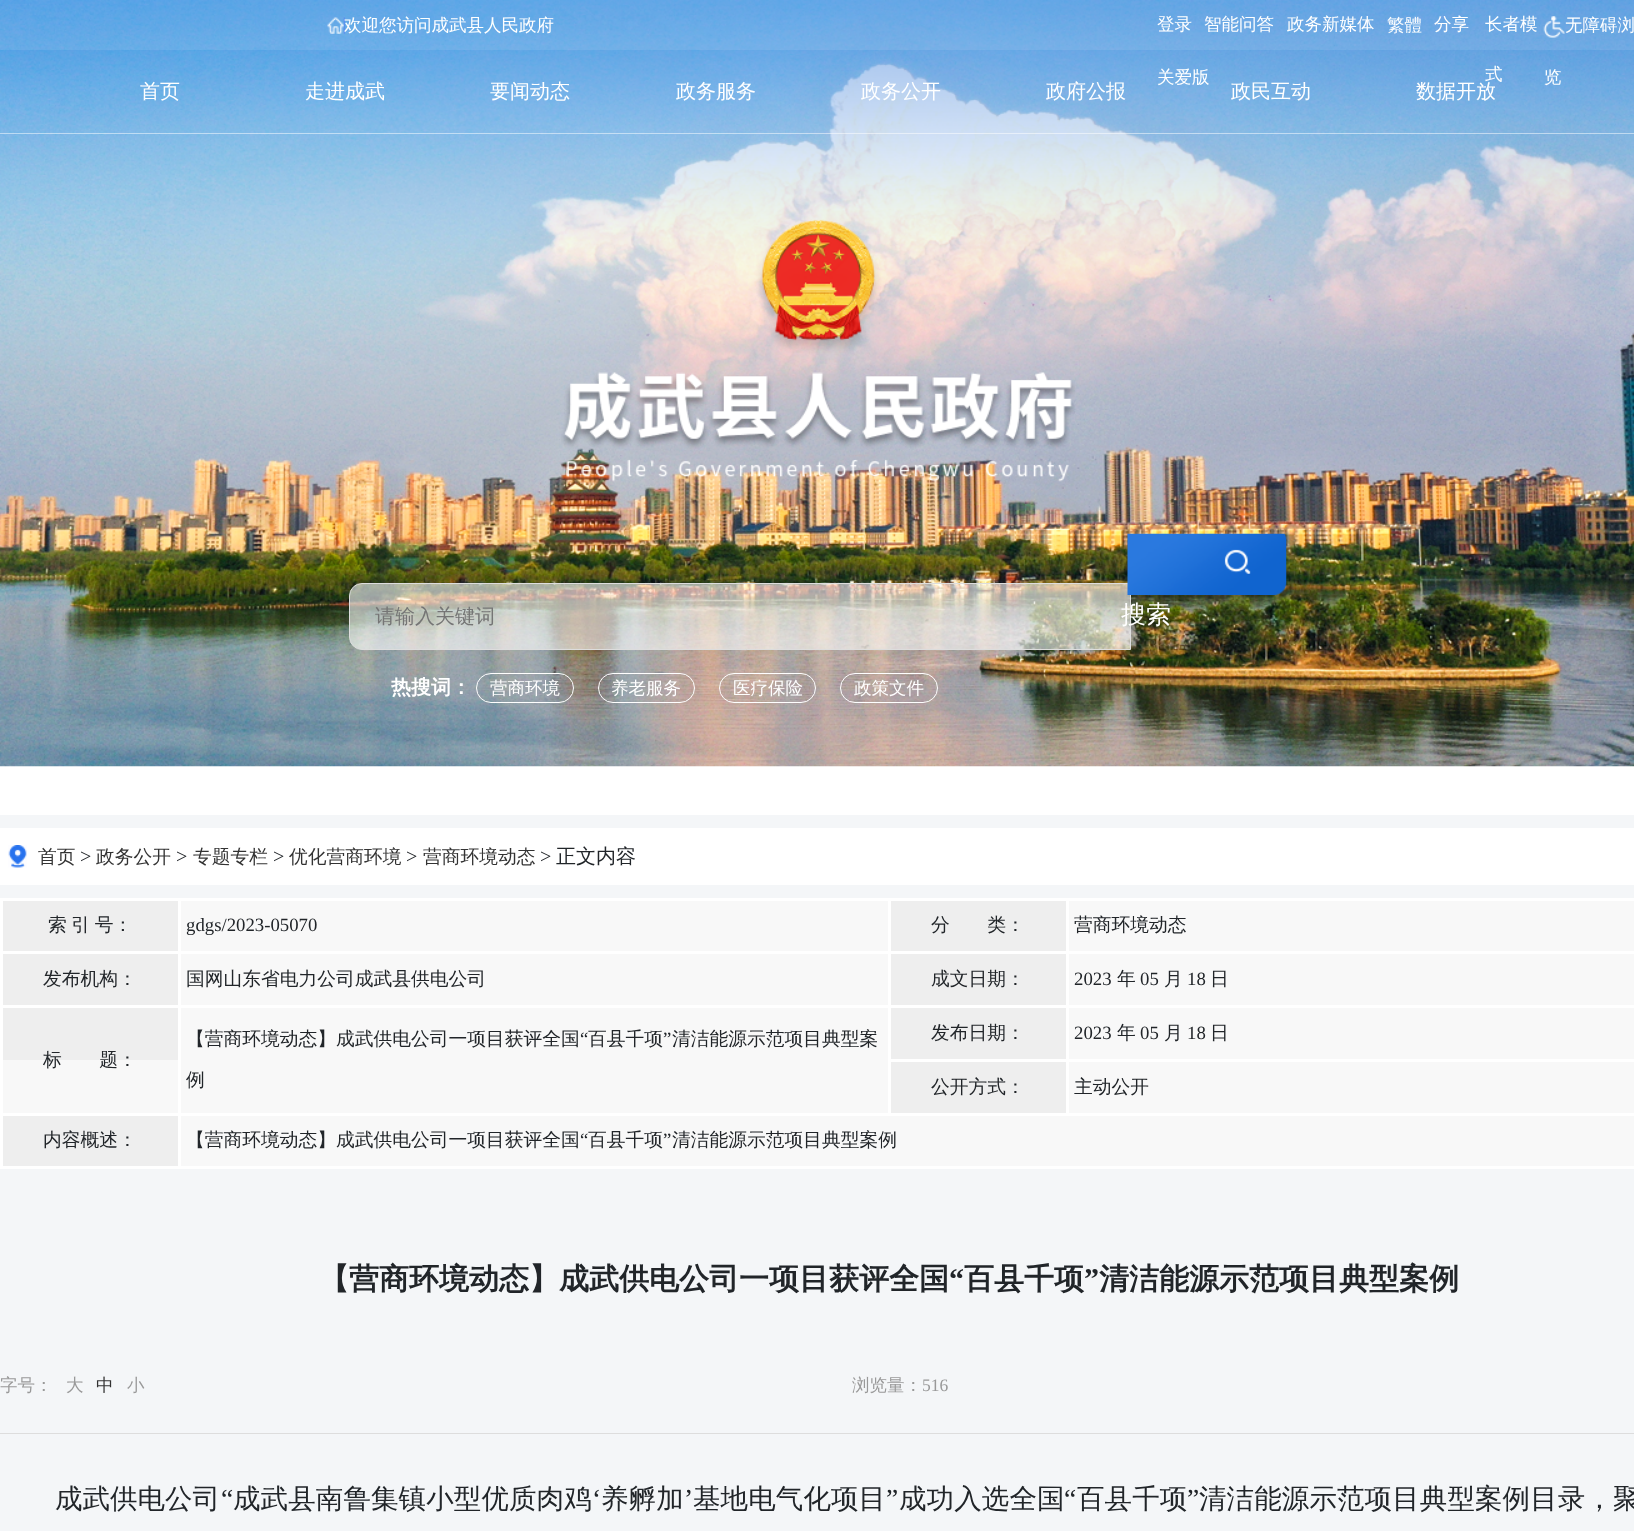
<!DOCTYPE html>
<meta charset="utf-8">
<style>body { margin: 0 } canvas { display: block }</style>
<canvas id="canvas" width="1634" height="1531"></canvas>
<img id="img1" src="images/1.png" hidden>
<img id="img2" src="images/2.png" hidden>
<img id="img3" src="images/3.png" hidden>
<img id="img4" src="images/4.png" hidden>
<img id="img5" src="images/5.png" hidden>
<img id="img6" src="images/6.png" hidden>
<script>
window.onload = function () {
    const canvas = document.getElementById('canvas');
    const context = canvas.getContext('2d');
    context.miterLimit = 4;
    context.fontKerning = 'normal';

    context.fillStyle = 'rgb(244, 246, 248)';
    context.fillRect(0, 0, 1634, 1531);
    context.fillStyle = 'rgb(255, 255, 255)';
    context.fillRect(0, 766, 1634, 49);
    context.drawImage(document.getElementById('img1'), 0, 0, 1634, 767);
    context.fillStyle = 'rgba(255, 255, 255, 0.1)';
    context.fillRect(0, 0, 1634, 50);
    context.drawImage(document.getElementById('img2'), 327, 17, 18, 17);
    context.drawImage(document.getElementById('img3'), 1543, 16, 22, 22);
    context.fillStyle = 'rgba(255, 255, 255, 0.5)';
    context.fillRect(0, 133, 1634, 1);
    context.drawImage(document.getElementById('img4'), 561, 219, 514, 263);
    context.fillStyle = 'rgba(255, 255, 255, 0.6)';
    context.beginPath();
    context.roundRect(349.5, 583.5, 781, 66, [12.5, 0, 0, 12.5]);
    context.fill();
    context.strokeStyle = 'rgb(221, 221, 221)';
    context.stroke();
    context.drawImage(document.getElementById('img5'), 1127, 533, 160, 62);
    context.beginPath();
    context.roundRect(476.5, 673.5, 97, 29, 14.5);
    context.strokeStyle = 'rgb(255, 255, 255)';
    context.stroke();
    context.beginPath();
    context.roundRect(598.5, 673.5, 96, 29, 14.5);
    context.stroke();
    context.beginPath();
    context.roundRect(719.5, 673.5, 96, 29, 14.5);
    context.stroke();
    context.beginPath();
    context.roundRect(840.5, 673.5, 97, 29, 14.5);
    context.stroke();
    context.fillStyle = 'rgb(255, 255, 255)';
    context.fillRect(0, 828, 1634, 57);
    context.drawImage(document.getElementById('img6'), 8, 845, 19, 23);
    context.fillStyle = 'rgb(238, 238, 238)';
    context.fillRect(3, 901, 175, 50);
    context.fillStyle = 'rgb(255, 255, 255)';
    context.fillRect(1066, 898, 568, 3);
    context.fillRect(1066, 951, 568, 3);
    context.fillRect(1066, 1005, 568, 3);
    context.fillStyle = 'rgb(248, 248, 248)';
    context.fillRect(3, 1060, 1631, 53);
    context.fillStyle = 'rgb(255, 255, 255)';
    context.fillRect(1066, 1059, 568, 3);
    context.fillRect(178, 1113, 1456, 3);
    context.fillRect(1066, 1059, 3, 56);
    context.fillRect(888, 1059, 181, 3);
    context.fillRect(1066, 1005, 3, 56);
    context.fillRect(888, 1005, 181, 3);
    context.fillRect(1066, 951, 3, 57);
    context.fillRect(888, 951, 181, 3);
    context.fillRect(1066, 898, 3, 56);
    context.fillRect(888, 898, 181, 3);
    context.fillRect(888, 1059, 3, 56);
    context.fillRect(888, 1005, 3, 56);
    context.fillRect(178, 1005, 712, 3);
    context.fillRect(888, 951, 3, 57);
    context.fillRect(178, 951, 712, 3);
    context.fillRect(888, 898, 3, 56);
    context.fillRect(178, 898, 712, 3);
    context.fillRect(178, 1166, 1456, 3);
    context.fillRect(178, 1113, 3, 56);
    context.fillRect(0, 1113, 180, 3);
    context.fillRect(178, 1005, 3, 110);
    context.fillRect(0, 1005, 180, 3);
    context.fillRect(178, 951, 3, 57);
    context.fillRect(0, 951, 180, 3);
    context.fillRect(178, 898, 3, 56);
    context.fillRect(0, 898, 180, 3);
    context.fillRect(0, 1166, 180, 3);
    context.fillRect(0, 1113, 3, 56);
    context.fillRect(0, 1005, 3, 110);
    context.fillRect(0, 951, 3, 57);
    context.fillRect(0, 898, 3, 56);
    context.fillStyle = 'rgb(248, 248, 248)';
    context.fillRect(181, 901, 707, 50);
    context.fillStyle = 'rgb(238, 238, 238)';
    context.fillRect(891, 901, 175, 50);
    context.fillStyle = 'rgb(248, 248, 248)';
    context.fillRect(1069, 901, 565, 50);
    context.fillStyle = 'rgb(238, 238, 238)';
    context.fillRect(3, 954, 175, 51);
    context.fillStyle = 'rgb(248, 248, 248)';
    context.fillRect(181, 954, 707, 51);
    context.fillStyle = 'rgb(238, 238, 238)';
    context.fillRect(891, 954, 175, 51);
    context.fillStyle = 'rgb(248, 248, 248)';
    context.fillRect(1069, 954, 565, 51);
    context.fillRect(1069, 1008, 565, 51);
    context.fillStyle = 'rgb(238, 238, 238)';
    context.fillRect(3, 1008, 175, 52);
    context.fillStyle = 'rgb(248, 248, 248)';
    context.fillRect(181, 1008, 707, 52);
    context.fillStyle = 'rgb(238, 238, 238)';
    context.fillRect(891, 1008, 175, 51);
    context.fillRect(891, 1062, 175, 51);
    context.fillRect(3, 1116, 175, 50);
    context.fillStyle = 'rgb(248, 248, 248)';
    context.fillRect(181, 1116, 1453, 50);
    context.fillStyle = 'rgb(221, 221, 221)';
    context.fillRect(0, 1433, 1634, 1);
    context.font = '500 17.5px WenQuanYi Zen Hei';
    context.fillStyle = 'rgb(255, 255, 255)';
    context.fillText('欢迎您访问成武县人民政府', 344, 31);
    context.fillText('登录', 1157, 30);
    context.fillText('智能问答', 1204, 30);
    context.fillText('政务新媒体', 1287, 30);
    context.fillText('繁體', 1387, 31);
    context.fillText('分享', 1434, 30);
    context.fillText('关爱版', 1157, 83);
    context.fillText('长者模', 1485, 30);
    context.fillText('式', 1485, 80);
    context.fillText('无障碍浏', 1565, 31);
    context.fillText('览', 1544, 83);
    context.font = '500 20px WenQuanYi Zen Hei';
    context.fillText('首页', 140, 98);
    context.fillText('走进成武', 305, 98);
    context.fillText('要闻动态', 490, 98);
    context.fillText('政务服务', 676, 98);
    context.fillText('政务公开', 861, 98);
    context.fillText('政府公报', 1046, 98);
    context.fillText('政民互动', 1231, 98);
    context.fillText('数据开放', 1416, 98);
    context.fillStyle = 'rgb(117, 117, 117)';
    context.fillText('请输入关键词', 375, 623);
    context.font = '500 25px WenQuanYi Zen Hei';
    context.fillStyle = 'rgb(255, 255, 255)';
    context.fillText('搜索', 1121, 623);
    context.font = 'bold 20px WenQuanYi Zen Hei';
    context.fillText('热搜词：', 391, 694);
    context.font = '500 17.5px WenQuanYi Zen Hei';
    context.fillText('营商环境', 490, 694);
    context.fillText('养老服务', 611, 694);
    context.fillText('医疗保险', 733, 694);
    context.fillText('政策文件', 854, 694);
    context.font = '500 18.75px WenQuanYi Zen Hei';
    context.fillStyle = 'rgb(51, 51, 51)';
    context.fillText('首页', 38, 863);
    context.font = '20px Liberation Serif';
    context.fillStyle = 'rgb(33, 37, 41)';
    context.fillText('>', 80, 863);
    context.font = '500 18.75px WenQuanYi Zen Hei';
    context.fillStyle = 'rgb(51, 51, 51)';
    context.fillText('政务公开', 96, 863);
    context.font = '20px Liberation Serif';
    context.fillStyle = 'rgb(33, 37, 41)';
    context.fillText('>', 176, 863);
    context.font = '500 18.75px WenQuanYi Zen Hei';
    context.fillStyle = 'rgb(51, 51, 51)';
    context.fillText('专题专栏', 193, 863);
    context.font = '20px Liberation Serif';
    context.fillStyle = 'rgb(33, 37, 41)';
    context.fillText('>', 273, 863);
    context.font = '500 18.75px WenQuanYi Zen Hei';
    context.fillStyle = 'rgb(51, 51, 51)';
    context.fillText('优化营商环境', 289, 863);
    context.font = '20px Liberation Serif';
    context.fillStyle = 'rgb(33, 37, 41)';
    context.fillText('>', 406, 863);
    context.font = '500 18.75px WenQuanYi Zen Hei';
    context.fillStyle = 'rgb(51, 51, 51)';
    context.fillText('营商环境动态', 423, 863);
    context.font = '20px Liberation Serif';
    context.fillStyle = 'rgb(33, 37, 41)';
    context.fillText('>', 540, 863);
    context.font = '500 20px WenQuanYi Zen Hei';
    context.fillText('正文内容', 556, 863);
    context.wordSpacing = '-1px';
    context.font = '500 18.75px WenQuanYi Zen Hei';
    context.fillText('索 引 号：', 48, 931);
    context.wordSpacing = '0px';
    context.font = '18.75px Liberation Serif';
    context.fillText('gdgs/2023-05070', 186, 931);
    context.font = '500 18.75px WenQuanYi Zen Hei';
    context.fillText('分　　类：', 931, 931);
    context.fillText('营商环境动态', 1074, 931);
    context.fillText('发布机构：', 43, 985);
    context.fillText('国网山东省电力公司成武县供电公司', 186, 985);
    context.fillText('成文日期：', 931, 985);
    context.font = '18.75px Liberation Serif';
    context.fillText('2023', 1074, 985);
    context.font = '500 18.75px WenQuanYi Zen Hei';
    context.fillText('年', 1117, 985);
    context.font = '18.75px Liberation Serif';
    context.fillText('05', 1140, 985);
    context.font = '500 18.75px WenQuanYi Zen Hei';
    context.fillText('月', 1164, 985);
    context.font = '18.75px Liberation Serif';
    context.fillText('18', 1187, 985);
    context.font = '500 18.75px WenQuanYi Zen Hei';
    context.fillText('日', 1210, 985);
    context.fillText('标　　题：', 43, 1066);
    context.fillText('【营商环境动态】成武供电公司一项目获评全国', 186, 1045);
    context.font = '18.75px Liberation Serif';
    context.fillText('“', 580, 1045);
    context.font = '500 18.75px WenQuanYi Zen Hei';
    context.fillText('百县千项', 588, 1045);
    context.font = '18.75px Liberation Serif';
    context.fillText('”', 663, 1045);
    context.font = '500 18.75px WenQuanYi Zen Hei';
    context.fillText('清洁能源示范项目典型案', 672, 1045);
    context.fillText('例', 186, 1086);
    context.fillText('发布日期：', 931, 1039);
    context.font = '18.75px Liberation Serif';
    context.fillText('2023', 1074, 1039);
    context.font = '500 18.75px WenQuanYi Zen Hei';
    context.fillText('年', 1117, 1039);
    context.font = '18.75px Liberation Serif';
    context.fillText('05', 1140, 1039);
    context.font = '500 18.75px WenQuanYi Zen Hei';
    context.fillText('月', 1164, 1039);
    context.font = '18.75px Liberation Serif';
    context.fillText('18', 1187, 1039);
    context.font = '500 18.75px WenQuanYi Zen Hei';
    context.fillText('日', 1210, 1039);
    context.fillText('公开方式：', 931, 1093);
    context.fillText('主动公开', 1074, 1093);
    context.fillText('内容概述：', 43, 1146);
    context.fillText('【营商环境动态】成武供电公司一项目获评全国', 186, 1146);
    context.font = '18.75px Liberation Serif';
    context.fillText('“', 580, 1146);
    context.font = '500 18.75px WenQuanYi Zen Hei';
    context.fillText('百县千项', 588, 1146);
    context.font = '18.75px Liberation Serif';
    context.fillText('”', 663, 1146);
    context.font = '500 18.75px WenQuanYi Zen Hei';
    context.fillText('清洁能源示范项目典型案例', 672, 1146);
    context.font = 'bold 30px WenQuanYi Zen Hei';
    context.fillText('【营商环境动态】成武供电公司一项目获评全国', 319, 1289);
    context.font = 'bold 30px Liberation Serif';
    context.fillText('“', 949, 1289);
    context.font = 'bold 30px WenQuanYi Zen Hei';
    context.fillText('百县千项', 964, 1289);
    context.font = 'bold 30px Liberation Serif';
    context.fillText('”', 1084, 1289);
    context.font = 'bold 30px WenQuanYi Zen Hei';
    context.fillText('清洁能源示范项目典型案例', 1099, 1289);
    context.font = '500 17.5px WenQuanYi Zen Hei';
    context.fillStyle = 'rgb(153, 153, 153)';
    context.fillText('字号：', 0, 1391);
    context.fillText('大', 66, 1391);
    context.fillStyle = 'rgb(51, 51, 51)';
    context.fillText('中', 96, 1391);
    context.fillStyle = 'rgb(153, 153, 153)';
    context.fillText('小', 127, 1391);
    context.fillText('浏览量：', 852, 1391);
    context.font = '17.5px Liberation Serif';
    context.fillText('516', 922, 1391);
    context.font = '500 27.5px WenQuanYi Zen Hei';
    context.fillStyle = 'rgb(33, 37, 41)';
    context.fillText('成武供电', 55, 1508);
    context.letterSpacing = '0.1px';
    context.fillText('公司', 165, 1508);
    context.font = '27.5px Liberation Serif';
    context.fillText('“', 221, 1508);
    context.font = '500 27.5px WenQuanYi Zen Hei';
    context.fillText('成武县南鲁集镇小型优质肉鸡', 233, 1508);
    context.font = '27.5px Liberation Serif';
    context.fillText('‘', 592, 1508);
    context.font = '500 27.5px WenQuanYi Zen Hei';
    context.fillText('养孵加', 601, 1508);
    context.font = '27.5px Liberation Serif';
    context.fillText('’', 684, 1508);
    context.font = '500 27.5px WenQuanYi Zen Hei';
    context.fillText('基地电气化项目', 693, 1508);
    context.font = '27.5px Liberation Serif';
    context.fillText('”', 886, 1508);
    context.font = '500 27.5px WenQuanYi Zen Hei';
    context.fillText('成功入选全国', 899, 1508);
    context.font = '27.5px Liberation Serif';
    context.fillText('“', 1064, 1508);
    context.font = '500 27.5px WenQuanYi Zen Hei';
    context.fillText('百县千项', 1077, 1508);
    context.font = '27.5px Liberation Serif';
    context.fillText('”', 1187, 1508);
    context.font = '500 27.5px WenQuanYi Zen Hei';
    context.fillText('清洁能源示范项目典型案例目录，聚', 1199, 1508);
};
</script>
